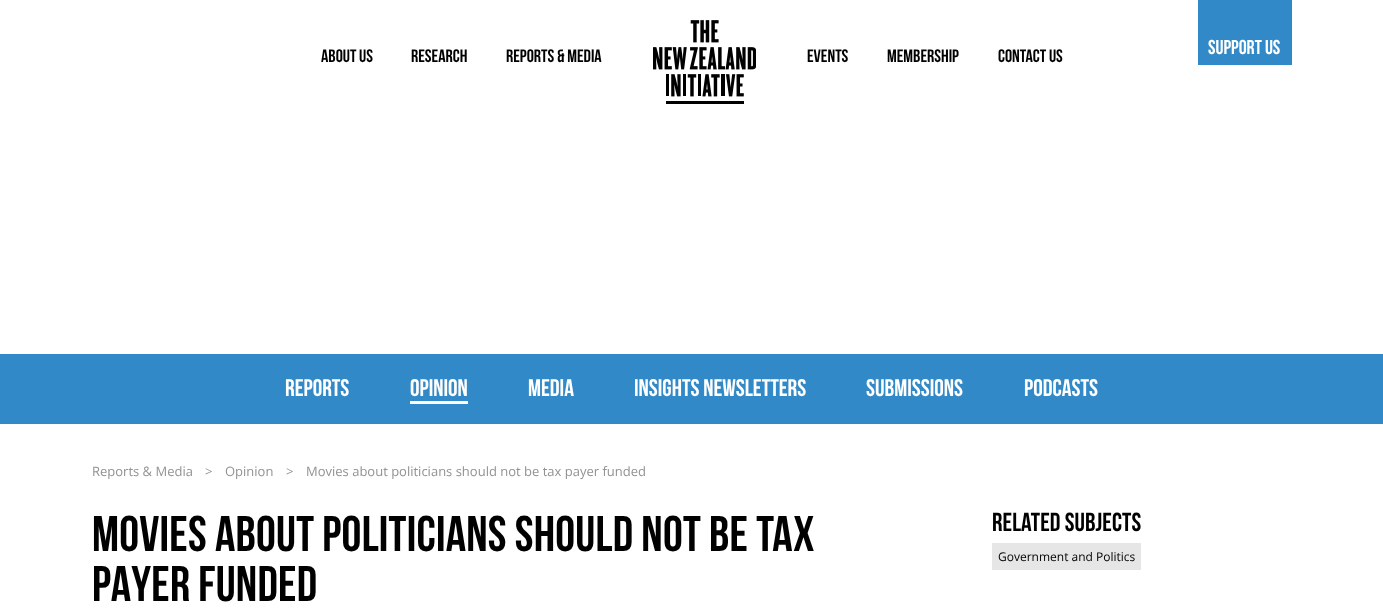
<!DOCTYPE html>
<meta charset="utf-8">
<style>body { margin: 0 } canvas { display: block }</style>
<canvas id="canvas" width="1383" height="616"></canvas>
<img id="img1" src="images/1.png" hidden>
<script>
window.onload = function () {
    const canvas = document.getElementById('canvas');
    const context = canvas.getContext('2d');
    context.miterLimit = 4;
    context.fontKerning = 'normal';

    context.fillStyle = 'rgb(255, 255, 255)';
    context.fillRect(0, 0, 1383, 616);
    context.drawImage(document.getElementById('img1'), 653, 20, 103, 84);
    context.fillStyle = 'rgb(49, 137, 199)';
    context.fillRect(1198, 0, 94, 65);
    context.fillRect(0, 354, 1383, 70);
    context.fillStyle = 'rgb(255, 255, 255)';
    context.fillRect(410, 401, 58, 3);
    context.fillStyle = 'rgb(230, 230, 230)';
    context.fillRect(992, 543, 149, 27);
    context.font = 'bold 18px Bebas Neue';
    context.fillStyle = 'rgb(0, 0, 0)';
    context.fillText('ABOUT US', 321, 62);
    context.fillText('RESEARCH', 411, 62);
    context.fillText('REPORTS & MEDIA', 506, 62);
    context.fillText('EVENTS', 807, 62);
    context.fillText('MEMBERSHIP', 887, 62);
    context.fillText('CONTACT US', 998, 62);
    context.font = 'bold 20px Bebas Neue';
    context.fillStyle = 'rgb(255, 255, 255)';
    context.fillText('SUPPORT US', 1208, 54);
    context.font = 'bold 24px Bebas Neue';
    context.fillText('REPORTS', 285, 396);
    context.fillText('OPINION', 410, 396);
    context.fillText('MEDIA', 528, 396);
    context.fillText('INSIGHTS NEWSLETTERS', 634, 396);
    context.fillText('SUBMISSIONS', 866, 396);
    context.fillText('PODCASTS', 1024, 396);
    context.font = '13px Open Sans';
    context.fillStyle = 'rgb(146, 146, 146)';
    context.fillText('Reports & Media', 92, 476);
    context.fillText('>', 205, 476);
    context.fillText('Opinion', 225, 476);
    context.fillText('>', 286, 476);
    context.fillText('Movies about politicians should not be tax payer funded', 306, 476);
    context.letterSpacing = '0.25px';
    context.font = 'bold 50px Bebas Neue';
    context.fillStyle = 'rgb(0, 0, 0)';
    context.fillText('MOVIES ABOUT POLITICIANS SHOULD NOT BE TAX', 92, 551);
    context.fillText('PAYER FUNDED', 92, 601);
    context.letterSpacing = '0.1px';
    context.font = 'bold 26px Bebas Neue';
    context.fillText('Related Subjects', 992, 531);
    context.letterSpacing = '0px';
    context.font = '12px Open Sans';
    context.fillText('Government and Politics', 998, 561);
};
</script>
